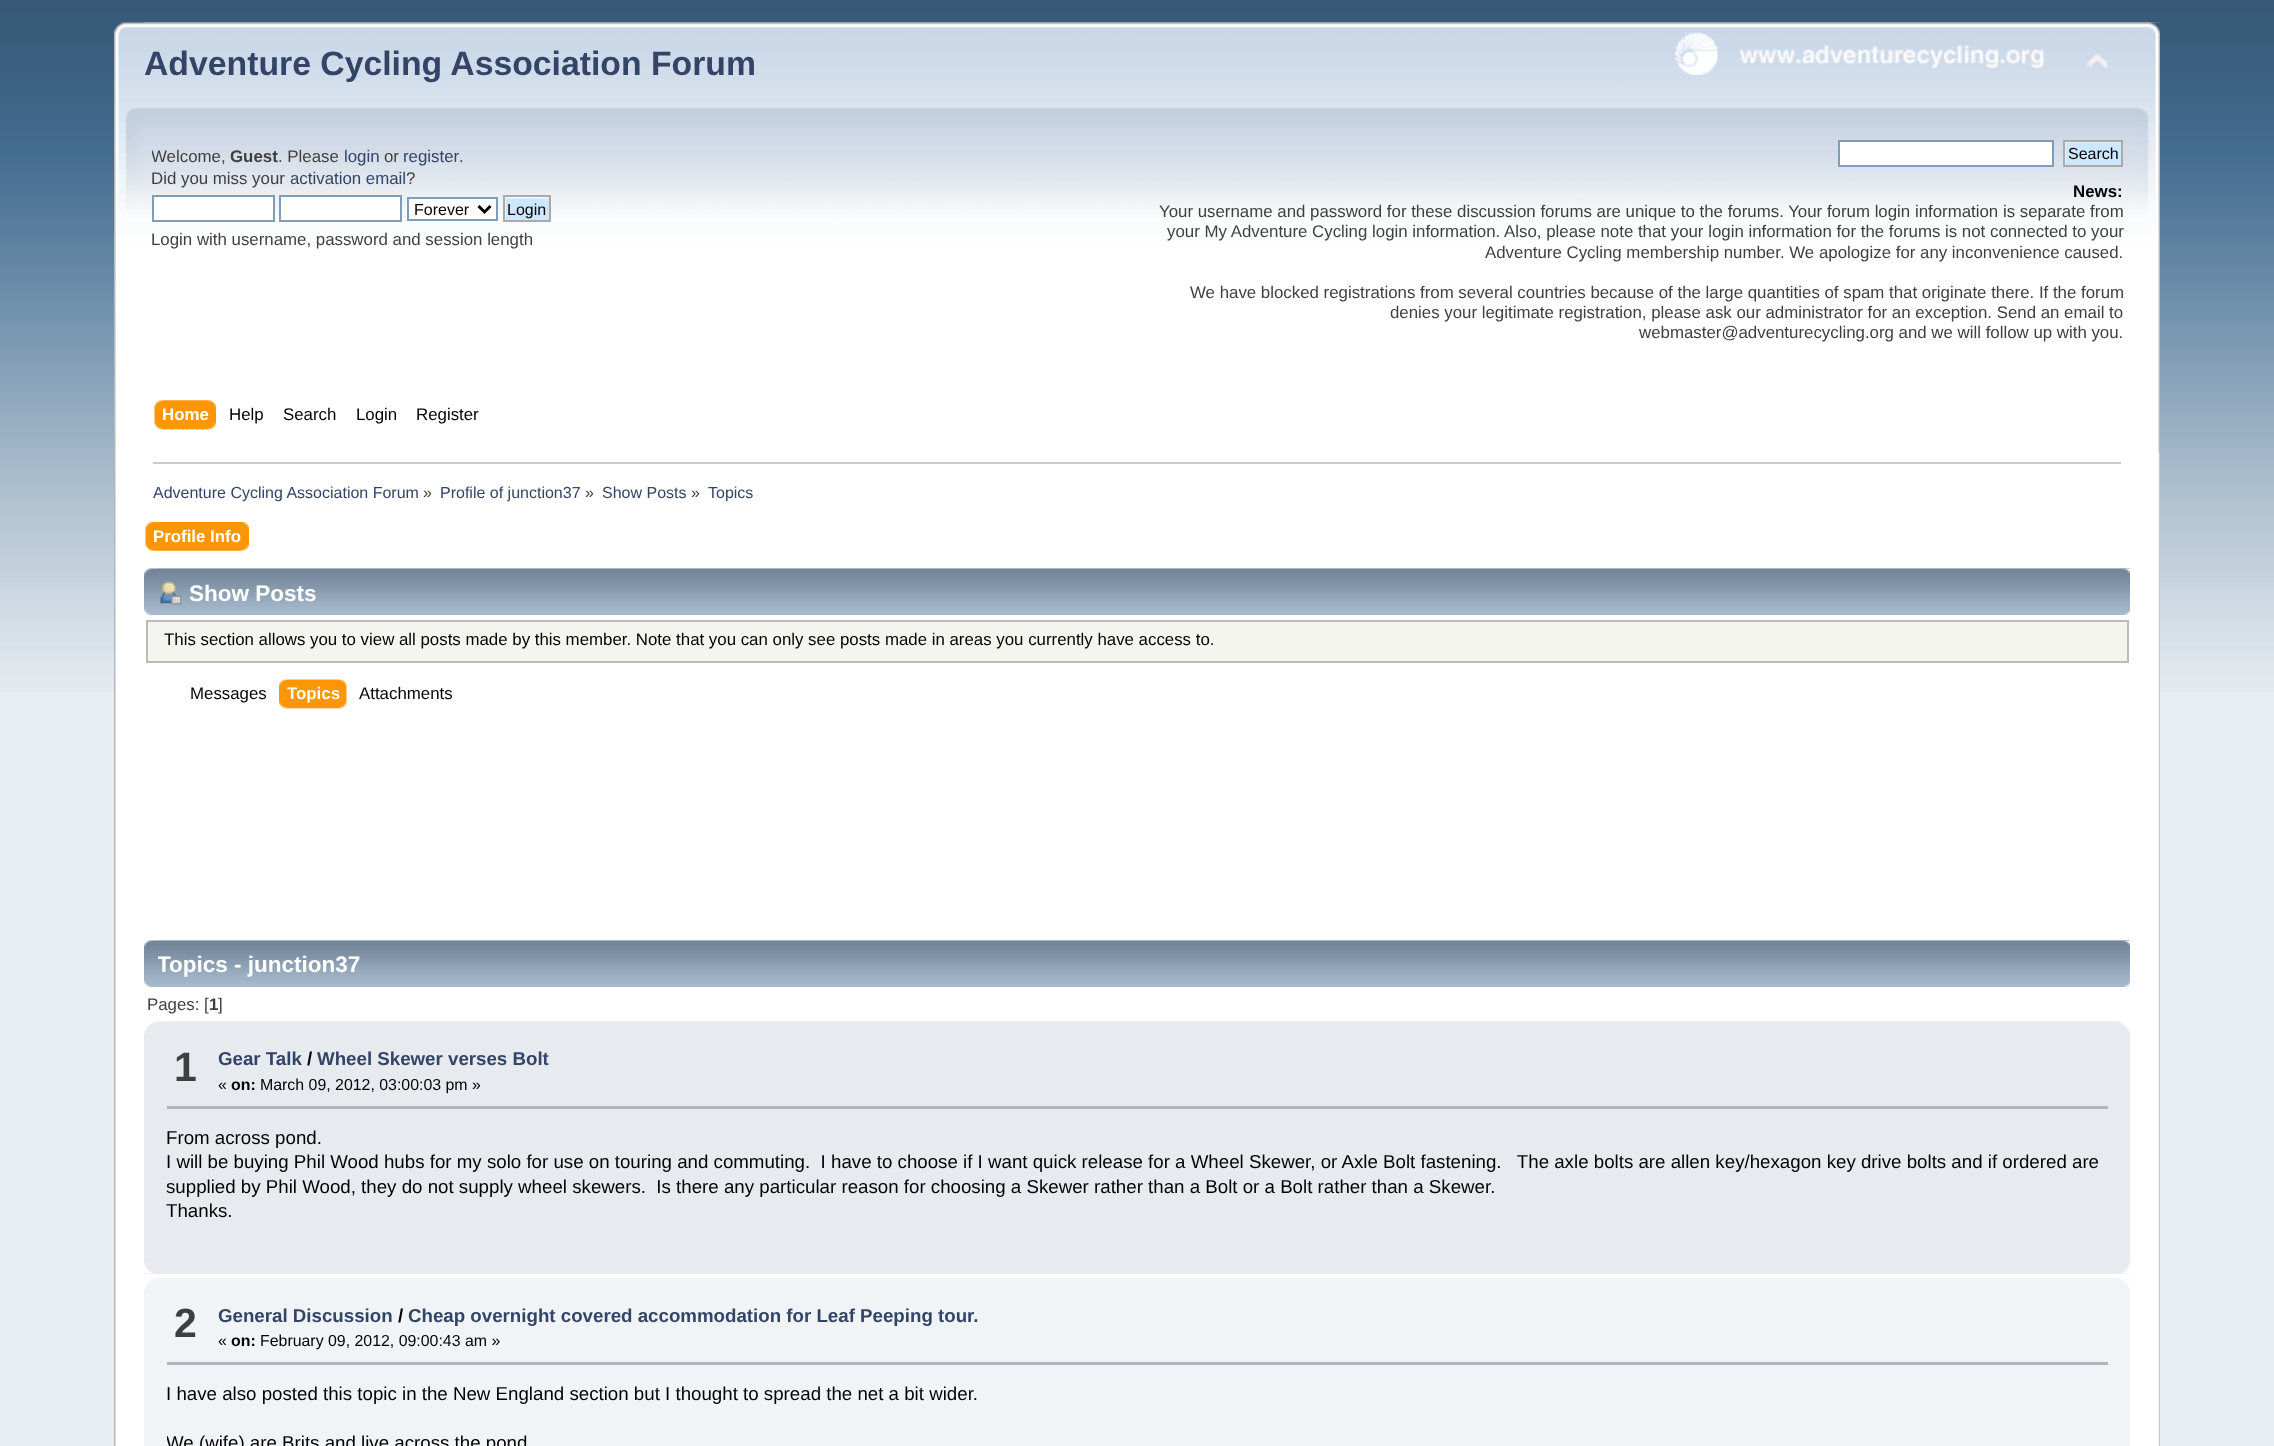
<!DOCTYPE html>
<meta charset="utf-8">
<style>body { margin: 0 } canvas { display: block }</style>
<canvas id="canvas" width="2274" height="1446"></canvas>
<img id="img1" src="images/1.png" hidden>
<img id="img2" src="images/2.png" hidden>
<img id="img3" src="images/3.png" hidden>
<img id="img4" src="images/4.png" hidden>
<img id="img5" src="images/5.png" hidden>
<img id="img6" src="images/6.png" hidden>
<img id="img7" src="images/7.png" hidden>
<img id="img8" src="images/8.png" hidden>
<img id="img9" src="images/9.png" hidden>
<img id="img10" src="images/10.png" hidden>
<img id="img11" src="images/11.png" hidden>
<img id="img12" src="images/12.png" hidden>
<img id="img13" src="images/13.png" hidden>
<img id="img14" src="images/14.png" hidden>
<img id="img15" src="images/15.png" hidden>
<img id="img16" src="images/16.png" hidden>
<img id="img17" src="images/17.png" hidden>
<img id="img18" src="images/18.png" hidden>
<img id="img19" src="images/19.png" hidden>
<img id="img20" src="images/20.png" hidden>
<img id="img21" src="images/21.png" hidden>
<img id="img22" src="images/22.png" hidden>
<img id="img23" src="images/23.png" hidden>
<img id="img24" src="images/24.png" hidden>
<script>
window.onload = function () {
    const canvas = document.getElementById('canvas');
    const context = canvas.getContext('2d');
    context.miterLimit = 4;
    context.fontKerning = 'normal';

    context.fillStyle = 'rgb(233, 238, 242)';
    context.fillRect(0, 0, 2274, 1446);
    context.drawImage(document.getElementById('img1'), 0, 0, 2274, 693);
    context.drawImage(document.getElementById('img2'), 114, 22, 2046, 431);
    context.drawImage(document.getElementById('img3'), 144, 22, 2016, 431);
    context.drawImage(document.getElementById('img4'), 1675, 32, 370, 43);
    context.drawImage(document.getElementById('img5'), 2086, 53, 23, 17);
    context.fillStyle = 'rgb(255, 255, 255)';
    context.beginPath();
    context.rect(153, 196, 121, 25);
    context.fill();
    context.strokeStyle = 'rgb(127, 157, 185)';
    context.lineWidth = 2;
    context.stroke();
    context.beginPath();
    context.rect(280, 196, 121, 25);
    context.fill();
    context.stroke();
    context.beginPath();
    context.rect(408, 198, 89, 22);
    context.fill();
    context.stroke();
    context.beginPath();
    context.moveTo(478.5, 206);
    context.lineTo(484.5, 212);
    context.lineTo(490.5, 206);
    context.strokeStyle = 'rgb(0, 0, 0)';
    context.lineWidth = 3;
    context.stroke();
    context.drawImage(document.getElementById('img6'), 505, 197, 44, 23);
    context.strokeStyle = 'rgb(170, 170, 170)';
    context.lineWidth = 2;
    context.strokeRect(504, 196, 46, 25);
    context.beginPath();
    context.rect(1839, 141, 214, 25);
    context.fill();
    context.strokeStyle = 'rgb(127, 157, 185)';
    context.stroke();
    context.drawImage(document.getElementById('img7'), 2065, 142, 56, 23);
    context.strokeStyle = 'rgb(170, 170, 170)';
    context.strokeRect(2064, 141, 58, 25);
    context.drawImage(document.getElementById('img8'), 162, 400, 54, 30);
    context.drawImage(document.getElementById('img9'), 154, 400, 55, 30);
    context.fillRect(116, 453, 2042, 993);
    context.drawImage(document.getElementById('img10'), 114, 453, 2, 993);
    context.drawImage(document.getElementById('img11'), 2158, 453, 2, 993);
    context.fillStyle = 'rgb(204, 204, 204)';
    context.fillRect(153, 462, 1968, 2);
    context.drawImage(document.getElementById('img12'), 153, 522, 96, 29);
    context.drawImage(document.getElementById('img13'), 145, 522, 97, 29);
    context.drawImage(document.getElementById('img14'), 144, 568, 1986, 47);
    context.drawImage(document.getElementById('img15'), 157, 568, 1973, 47);
    context.drawImage(document.getElementById('img16'), 160, 581, 22, 24);
    context.fillStyle = 'rgb(245, 245, 240)';
    context.beginPath();
    context.rect(147, 621, 1981, 41);
    context.fill();
    context.strokeStyle = 'rgb(187, 187, 187)';
    context.stroke();
    context.drawImage(document.getElementById('img17'), 286, 679, 61, 30);
    context.drawImage(document.getElementById('img18'), 279, 679, 60, 30);
    context.drawImage(document.getElementById('img14'), 144, 940, 1986, 47);
    context.drawImage(document.getElementById('img15'), 157, 940, 1973, 47);
    context.fillStyle = 'rgb(231, 234, 239)';
    context.fillRect(144, 1034, 1986, 240);
    context.drawImage(document.getElementById('img19'), 144, 1021, 1986, 13);
    context.drawImage(document.getElementById('img20'), 174, 1021, 1956, 13);
    context.fillStyle = 'rgb(179, 179, 191)';
    context.fillRect(167, 1106, 1941, 3);
    context.drawImage(document.getElementById('img21'), 144, 1262, 8, 12);
    context.drawImage(document.getElementById('img22'), 2122, 1262, 8, 12);
    context.fillStyle = 'rgb(240, 244, 247)';
    context.fillRect(144, 1278, 1986, 168);
    context.drawImage(document.getElementById('img23'), 144, 1278, 12, 12);
    context.drawImage(document.getElementById('img24'), 2118, 1278, 12, 12);
    context.fillStyle = 'rgb(179, 179, 191)';
    context.fillRect(167, 1362, 1941, 3);
    context.font = 'bold 33.75px Liberation Sans';
    context.fillStyle = 'rgb(51, 68, 102)';
    context.fillText('Adventure Cycling Association Forum', 144, 75);
    context.save();
    context.beginPath();
    context.rect(152, 140, 985, 117);
    context.clip();
    context.font = '16.85px Liberation Sans';
    context.fillStyle = 'rgb(63, 63, 63)';
    context.fillText('Welcome,', 151, 162);
    context.restore();
    context.font = 'bold 16.85px Liberation Sans';
    context.fillStyle = 'rgb(63, 63, 63)';
    context.fillText('Guest', 230, 162);
    context.font = '16.85px Liberation Sans';
    context.fillText('. Please', 278, 162);
    context.fillStyle = 'rgb(51, 68, 102)';
    context.fillText('login', 344, 162);
    context.fillStyle = 'rgb(63, 63, 63)';
    context.fillText('or', 384, 162);
    context.fillStyle = 'rgb(51, 68, 102)';
    context.fillText('register', 403, 162);
    context.fillStyle = 'rgb(63, 63, 63)';
    context.fillText('.', 459, 162);
    context.fillText('Did you miss your', 151, 184);
    context.fillStyle = 'rgb(51, 68, 102)';
    context.fillText('activation email', 290, 184);
    context.fillStyle = 'rgb(63, 63, 63)';
    context.fillText('?', 406, 184);
    context.font = '16px Liberation Sans';
    context.fillStyle = 'rgb(0, 0, 0)';
    context.fillText('Forever', 414, 215);
    context.fillText('Login', 507, 215);
    context.font = '16.85px Liberation Sans';
    context.fillStyle = 'rgb(63, 63, 63)';
    context.fillText('Login with username, password and session length', 151, 245);
    context.font = '16px Liberation Sans';
    context.fillStyle = 'rgb(0, 0, 0)';
    context.fillText('Search', 2068, 159);
    context.font = 'bold 16.85px Liberation Sans';
    context.fillText('News:', 2073, 197);
    context.font = '16.85px Liberation Sans';
    context.fillStyle = 'rgb(63, 63, 63)';
    context.fillText('Your username and password for these discussion forums are unique to the forums. Your forum login information is separate from', 1159, 217);
    context.fillText('your My Adventure Cycling login information. Also, please note that your login information for the forums is not connected to your', 1167, 237);
    context.fillText('Adventure Cycling membership number. We apologize for any inconvenience caused.', 1485, 258);
    context.fillText('We have blocked registrations from several countries because of the large quantities of spam that originate there. If the forum', 1190, 298);
    context.fillText('denies your legitimate registration, please ask our administrator for an exception. Send an email to', 1390, 318);
    context.fillText('webmaster@adventurecycling.org and we will follow up with you.', 1639, 338);
    context.font = 'bold 16.85px Liberation Sans';
    context.fillStyle = 'rgb(255, 255, 255)';
    context.fillText('Home', 162, 420);
    context.font = '16.85px Liberation Sans';
    context.fillStyle = 'rgb(0, 0, 0)';
    context.fillText('Help', 229, 420);
    context.fillText('Search', 283, 420);
    context.fillText('Login', 356, 420);
    context.fillText('Register', 416, 420);
    context.font = '16px Liberation Sans';
    context.fillStyle = 'rgb(51, 68, 102)';
    context.fillText('Adventure Cycling Association Forum', 153, 498);
    context.fillStyle = 'rgb(63, 63, 63)';
    context.fillText('»', 423, 498);
    context.fillStyle = 'rgb(51, 68, 102)';
    context.fillText('Profile of junction37', 440, 498);
    context.fillStyle = 'rgb(63, 63, 63)';
    context.fillText('»', 585, 498);
    context.fillStyle = 'rgb(51, 68, 102)';
    context.fillText('Show Posts', 602, 498);
    context.fillStyle = 'rgb(63, 63, 63)';
    context.fillText('»', 691, 498);
    context.fillStyle = 'rgb(51, 68, 102)';
    context.fillText('Topics', 708, 498);
    context.font = 'bold 16.85px Liberation Sans';
    context.fillStyle = 'rgb(255, 255, 255)';
    context.fillText('Profile Info', 153, 542);
    context.font = 'bold 22.5px Liberation Sans';
    context.fillText('Show Posts', 189, 601);
    context.font = '16.85px Liberation Sans';
    context.fillStyle = 'rgb(0, 0, 0)';
    context.fillText('This section allows you to view all posts made by this member. Note that you can only see posts made in areas you currently have access to.', 164, 645);
    context.fillText('Messages', 190, 699);
    context.font = 'bold 16.85px Liberation Sans';
    context.fillStyle = 'rgb(255, 255, 255)';
    context.fillText('Topics', 287, 699);
    context.font = '16.85px Liberation Sans';
    context.fillStyle = 'rgb(0, 0, 0)';
    context.fillText('Attachments', 359, 699);
    context.save();
    context.beginPath();
    context.rect(158, 941, 1972, 46);
    context.clip();
    context.font = 'bold 22.5px Liberation Sans';
    context.fillStyle = 'rgb(255, 255, 255)';
    context.fillText('Topics - junction37', 157, 972);
    context.restore();
    context.fillStyle = 'rgb(63, 63, 63)';
    context.fillText('Pages: [', 147, 1010);
    context.font = 'bold 16.85px Liberation Sans';
    context.fillText('1', 209, 1010);
    context.font = '16.85px Liberation Sans';
    context.fillText(']', 218, 1010);
    context.font = 'bold 41px Liberation Sans';
    context.fillText('1', 174, 1081);
    context.font = 'bold 18.72px Liberation Sans';
    context.fillStyle = 'rgb(51, 68, 102)';
    context.fillText('Gear Talk', 218, 1065);
    context.fillStyle = 'rgb(0, 0, 0)';
    context.fillText('/', 307, 1065);
    context.fillStyle = 'rgb(51, 68, 102)';
    context.fillText('Wheel Skewer verses Bolt', 317, 1065);
    context.font = '15.9px Liberation Sans';
    context.fillStyle = 'rgb(0, 0, 0)';
    context.fillText('«', 218, 1090);
    context.font = 'bold 15.9px Liberation Sans';
    context.fillText('on:', 231, 1090);
    context.font = '15.9px Liberation Sans';
    context.fillText('March 09, 2012, 03:00:03 pm »', 260, 1090);
    context.font = '18.72px Liberation Sans';
    context.fillText('From across pond.', 166, 1144);
    context.fillText('I will be buying Phil Wood hubs for my solo for use on touring and commuting.  I have to choose if I want quick release for a Wheel Skewer, or Axle Bolt fastening.   The axle bolts are allen key/hexagon key drive bolts and if ordered are', 166, 1168);
    context.fillText('supplied by Phil Wood, they do not supply wheel skewers.  Is there any particular reason for choosing a Skewer rather than a Bolt or a Bolt rather than a Skewer.', 166, 1193);
    context.fillText('Thanks.', 166, 1217);
    context.font = 'bold 41px Liberation Sans';
    context.fillStyle = 'rgb(63, 63, 63)';
    context.fillText('2', 174, 1337);
    context.font = 'bold 18.72px Liberation Sans';
    context.fillStyle = 'rgb(51, 68, 102)';
    context.fillText('General Discussion', 218, 1322);
    context.fillStyle = 'rgb(0, 0, 0)';
    context.fillText('/', 398, 1322);
    context.fillStyle = 'rgb(51, 68, 102)';
    context.fillText('Cheap overnight covered accommodation for Leaf Peeping tour.', 408, 1322);
    context.font = '15.9px Liberation Sans';
    context.fillStyle = 'rgb(0, 0, 0)';
    context.fillText('«', 218, 1346);
    context.font = 'bold 15.9px Liberation Sans';
    context.fillText('on:', 231, 1346);
    context.font = '15.9px Liberation Sans';
    context.fillText('February 09, 2012, 09:00:43 am »', 260, 1346);
    context.font = '18.72px Liberation Sans';
    context.fillText('I have also posted this topic in the New England section but I thought to spread the net a bit wider.', 166, 1400);
    context.save();
    context.beginPath();
    context.rect(167, 1365, 1941, 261);
    context.clip();
    context.fillText('We (wife) are Brits and live across the pond', 166, 1449);
    context.restore();
};
</script>
